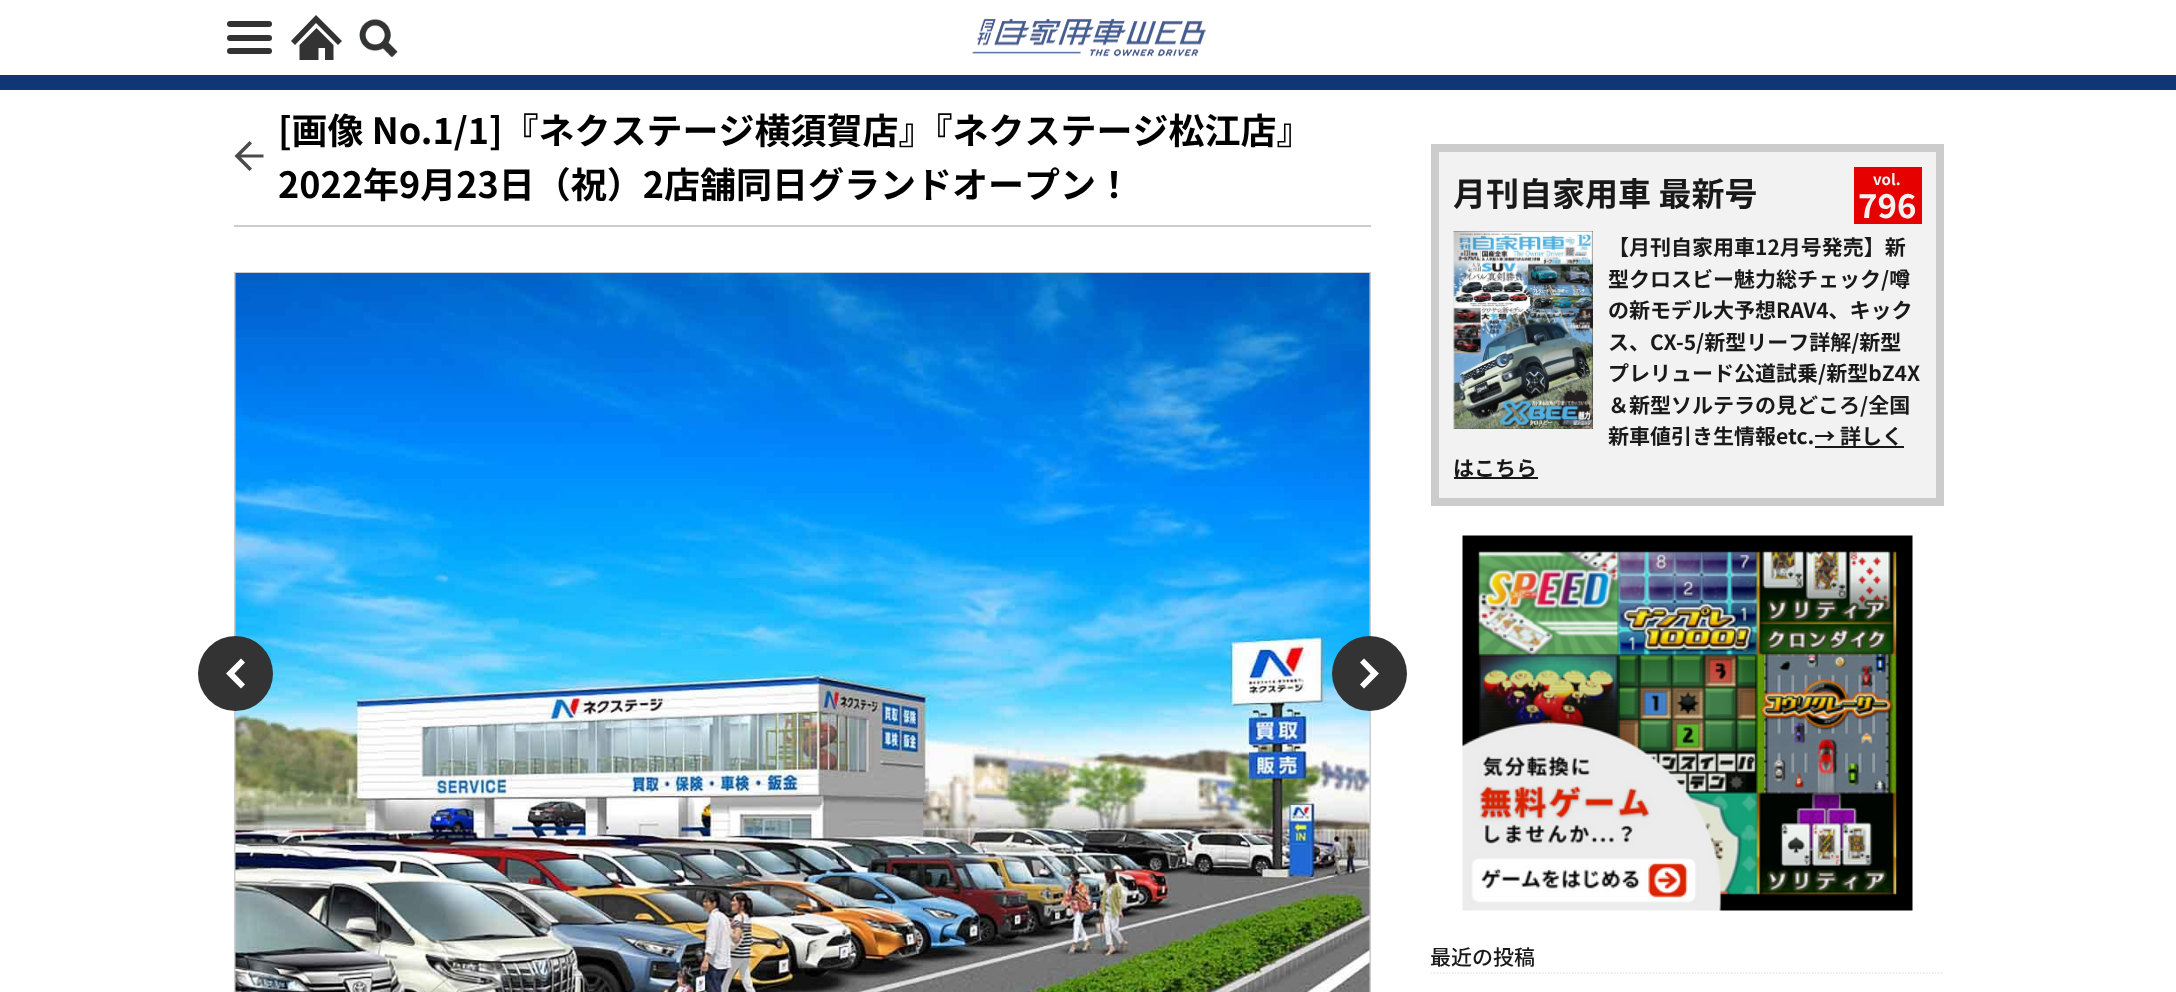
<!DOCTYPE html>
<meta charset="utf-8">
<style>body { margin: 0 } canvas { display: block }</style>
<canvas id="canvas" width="2176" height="992"></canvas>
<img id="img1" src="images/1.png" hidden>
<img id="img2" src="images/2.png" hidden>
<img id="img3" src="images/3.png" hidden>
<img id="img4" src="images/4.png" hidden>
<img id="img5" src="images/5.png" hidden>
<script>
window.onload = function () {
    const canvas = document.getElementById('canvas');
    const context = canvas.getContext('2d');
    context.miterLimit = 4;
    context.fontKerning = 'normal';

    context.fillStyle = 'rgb(255, 255, 255)';
    context.fillRect(0, 0, 2176, 992);
    context.fillStyle = 'rgb(15, 54, 117)';
    context.fillRect(0, 75, 2176, 15);
    context.fillStyle = 'rgb(51, 51, 51)';
    context.beginPath();
    context.roundRect(227, 35, 45, 6, 3);
    context.fill();
    context.beginPath();
    context.roundRect(227, 21, 45, 6, 3);
    context.fill();
    context.beginPath();
    context.roundRect(227, 48, 45, 6, 3);
    context.fill();
    context.beginPath();
    context.moveTo(335, 34);
    context.lineTo(316, 15);
    context.lineTo(291, 41);
    context.lineTo(295, 45);
    context.lineTo(316, 23);
    context.lineTo(338, 45);
    context.lineTo(342, 41);
    context.closePath();
    context.fill();
    context.beginPath();
    context.moveTo(299.5, 45);
    context.lineTo(299.5, 60);
    context.lineTo(318.5, 60);
    context.lineTo(318.5, 48);
    context.lineTo(325, 48);
    context.lineTo(325, 60);
    context.lineTo(333.5, 60);
    context.lineTo(333.5, 45);
    context.lineTo(316.5, 28);
    context.closePath();
    context.fill();
    context.drawImage(document.getElementById('img1'), 359, 19, 39, 38);
    context.drawImage(document.getElementById('img2'), 972, 18, 234, 39);
    context.fillStyle = 'rgb(204, 204, 204)';
    context.fillRect(234, 225, 1137, 2);
    context.fillStyle = 'rgb(75, 75, 75)';
    context.beginPath();
    context.moveTo(263.5, 154.5);
    context.lineTo(241, 154.5);
    context.lineTo(252, 143.5);
    context.lineTo(249.5, 141);
    context.lineTo(234.5, 156);
    context.lineTo(249.5, 171);
    context.lineTo(252, 168.5);
    context.lineTo(241, 157.5);
    context.lineTo(263.5, 157.5);
    context.closePath();
    context.fill();
    context.strokeStyle = 'rgb(204, 204, 204)';
    context.lineWidth = 2;
    context.strokeRect(235, 273, 1135, 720);
    context.drawImage(document.getElementById('img3'), 235, 273, 1135, 719);
    context.fillStyle = 'rgb(51, 51, 51)';
    context.beginPath();
    context.arc(235.5, 673.5, 37.5, 0, 2 * Math.PI);
    context.fill();
    context.fillStyle = 'rgb(255, 255, 255)';
    context.beginPath();
    context.moveTo(245, 662.5);
    context.lineTo(241, 658.5);
    context.lineTo(226, 673.5);
    context.lineTo(241, 688.5);
    context.lineTo(245, 684.5);
    context.lineTo(234.5, 673.5);
    context.closePath();
    context.fill();
    context.fillStyle = 'rgb(51, 51, 51)';
    context.beginPath();
    context.arc(1369.5, 673.5, 37.5, 0, 2 * Math.PI);
    context.fill();
    context.fillStyle = 'rgb(255, 255, 255)';
    context.beginPath();
    context.moveTo(1364, 658.5);
    context.lineTo(1360, 662.5);
    context.lineTo(1370.5, 673.5);
    context.lineTo(1360, 684.5);
    context.lineTo(1364, 688.5);
    context.lineTo(1379, 673.5);
    context.closePath();
    context.fill();
    context.fillStyle = 'rgb(242, 242, 242)';
    context.beginPath();
    context.rect(1435, 148, 505, 354);
    context.fill();
    context.lineWidth = 8;
    context.stroke();
    context.fillStyle = 'rgb(230, 0, 0)';
    context.fillRect(1854, 167, 68, 57);
    context.drawImage(document.getElementById('img4'), 1453, 231, 140, 198);
    context.fillStyle = 'rgb(25, 25, 25)';
    context.fillRect(1815, 446, 89, 2);
    context.fillRect(1454, 477, 84, 2);
    context.drawImage(document.getElementById('img5'), 1462, 535, 451, 376);
    context.beginPath();
    context.moveTo(1431, 973);
    context.lineTo(1944, 973);
    context.strokeStyle = 'rgb(230, 230, 230)';
    context.lineWidth = 1.5;
    context.setLineDash([1.5, 1.5]);
    context.stroke();
    context.font = 'bold 36px Noto Sans CJK JP';
    context.fillStyle = 'rgb(0, 0, 0)';
    context.fillText('[画像 No.1/1]『ネクステージ横須賀店』『ネクステージ松江店』', 278, 144);
    context.fillText('2022年9月23日（祝）2店舗同日グランドオープン！', 278, 198);
    context.font = 'bold 33px Noto Sans CJK JP';
    context.fillStyle = 'rgb(25, 25, 25)';
    context.fillText('月刊自家用車 最新号', 1453, 206);
    context.font = 'bold 15px Noto Sans CJK JP';
    context.fillStyle = 'rgb(242, 242, 242)';
    context.fillText('vol.', 1873, 185);
    context.font = 'bold 33px Noto Sans CJK JP';
    context.fillText('796', 1858, 218);
    context.font = 'bold 21px Noto Sans CJK JP';
    context.fillStyle = 'rgb(25, 25, 25)';
    context.fillText('【月刊自家用車12月号発売】新', 1608, 255);
    context.fillText('型クロスビー魅力総チェック/噂', 1608, 287);
    context.fillText('の新モデル大予想RAV4、キック', 1608, 318);
    context.fillText('ス、CX-5/新型リーフ詳解/新型', 1608, 350);
    context.fillText('プレリュード公道試乗/新型bZ4X', 1608, 381);
    context.fillText('＆新型ソルテラの見どころ/全国', 1608, 413);
    context.fillText('新車値引き生情報etc.→ 詳しく', 1608, 444);
    context.fillText('はこちら', 1453, 476);
    context.font = '500 21px Noto Sans CJK JP';
    context.fillText('最近の投稿', 1430, 965);
};
</script>
